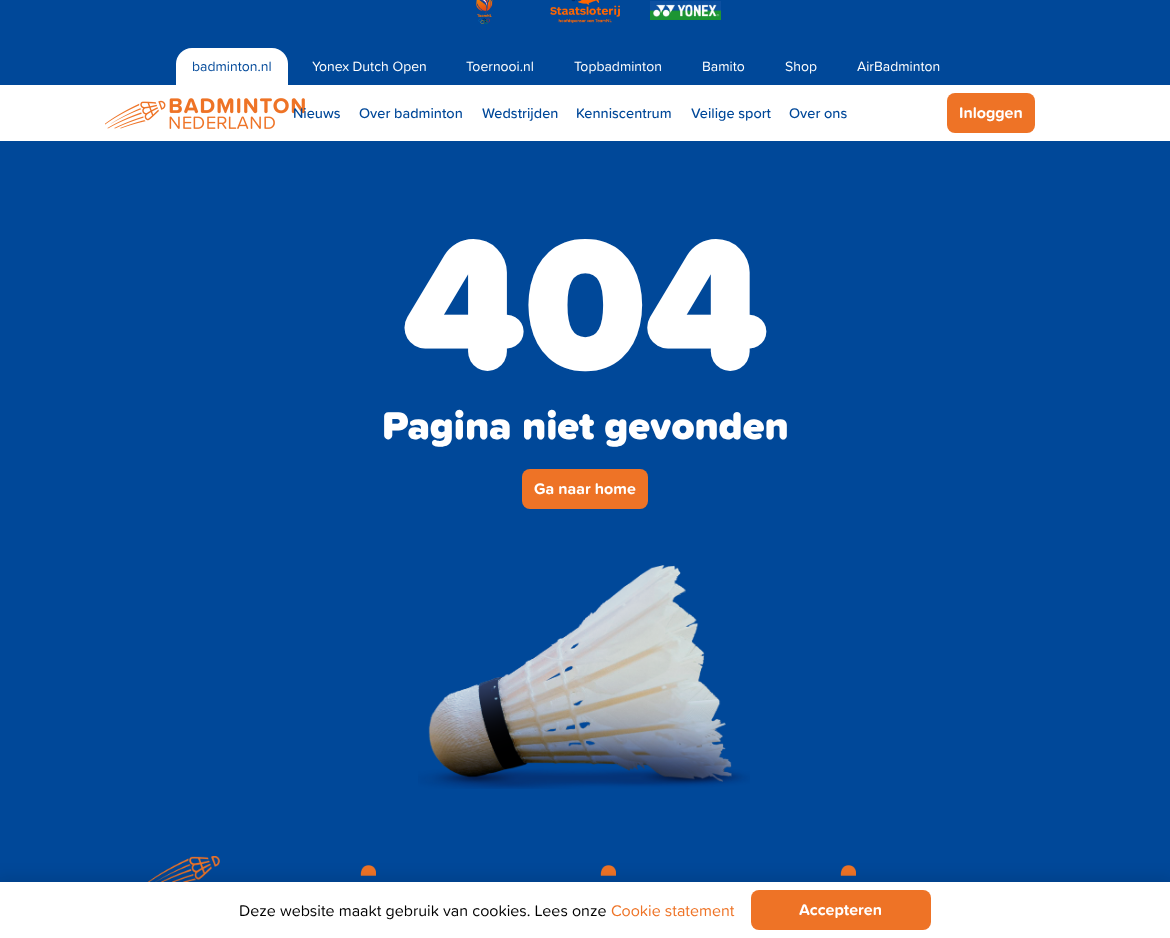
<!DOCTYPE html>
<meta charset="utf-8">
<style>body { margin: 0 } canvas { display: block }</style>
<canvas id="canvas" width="1170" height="938"></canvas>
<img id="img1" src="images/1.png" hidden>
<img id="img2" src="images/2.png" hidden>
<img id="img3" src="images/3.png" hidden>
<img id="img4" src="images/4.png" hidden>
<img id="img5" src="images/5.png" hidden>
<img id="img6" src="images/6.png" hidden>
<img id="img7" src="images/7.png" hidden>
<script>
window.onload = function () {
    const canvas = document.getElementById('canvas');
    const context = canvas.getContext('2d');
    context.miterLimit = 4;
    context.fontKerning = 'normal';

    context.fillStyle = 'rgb(255, 255, 255)';
    context.fillRect(0, 0, 1170, 938);
    context.fillStyle = 'rgb(0, 72, 153)';
    context.fillRect(0, 0, 1170, 85);
    context.drawImage(document.getElementById('img1'), 476, 0, 17, 24);
    context.drawImage(document.getElementById('img2'), 550, 0, 70, 23);
    context.drawImage(document.getElementById('img3'), 650, 1, 71, 19);
    context.fillStyle = 'rgb(255, 255, 255)';
    context.beginPath();
    context.roundRect(176, 48, 112, 37, [16, 16, 0, 0]);
    context.fill();
    context.drawImage(document.getElementById('img4'), 105, 98, 200, 31);
    context.fillStyle = 'rgb(238, 115, 38)';
    context.beginPath();
    context.roundRect(947, 93, 88, 40, 8);
    context.fill();
    context.fillStyle = 'rgb(0, 72, 153)';
    context.fillRect(0, 141, 1170, 424);
    context.fillStyle = 'rgb(238, 115, 38)';
    context.beginPath();
    context.roundRect(522, 469, 126, 40, 8);
    context.fill();
    context.fillStyle = 'rgb(0, 72, 153)';
    context.fillRect(0, 565, 1170, 317);
    context.drawImage(document.getElementById('img5'), 418, 565, 332, 224);
    context.drawImage(document.getElementById('img6'), 147, 856, 73, 26);
    context.drawImage(document.getElementById('img7'), 360, 865, 16, 11);
    context.drawImage(document.getElementById('img7'), 600, 865, 16, 11);
    context.drawImage(document.getElementById('img7'), 840, 865, 16, 11);
    context.fillStyle = 'rgba(0, 0, 0, 0.1)';
    context.filter = 'blur(7.5px)';
    context.beginPath();
    context.rect(-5, 877, 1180, 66);
    context.fill();
    context.filter = 'none';
    context.fillStyle = 'rgb(255, 255, 255)';
    context.fillRect(0, 882, 1170, 56);
    context.fillStyle = 'rgb(238, 115, 38)';
    context.beginPath();
    context.roundRect(751, 890, 180, 40, 8);
    context.fill();
    context.font = '14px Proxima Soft';
    context.fillStyle = 'rgb(0, 72, 153)';
    context.fillText('badminton.nl', 192, 71);
    context.fillStyle = 'rgb(255, 255, 255)';
    context.fillText('Yonex Dutch Open', 312, 71);
    context.fillText('Toernooi.nl', 466, 71);
    context.fillText('Topbadminton', 574, 71);
    context.fillText('Bamito', 702, 71);
    context.fillText('Shop', 785, 71);
    context.fillText('AirBadminton', 857, 71);
    context.font = '500 14.5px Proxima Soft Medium';
    context.fillStyle = 'rgb(0, 72, 153)';
    context.fillText('Nieuws', 293, 118);
    context.fillText('Over badminton', 359, 118);
    context.fillText('Wedstrijden', 482, 118);
    context.fillText('Kenniscentrum', 576, 118);
    context.fillText('Veilige sport', 691, 118);
    context.fillText('Over ons', 789, 118);
    context.font = 'bold 16px Proxima Soft';
    context.fillStyle = 'rgb(255, 255, 255)';
    context.fillText('Inloggen', 959, 118);
    context.font = '900 192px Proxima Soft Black';
    context.fillText('404', 403, 369);
    context.font = '900 40px Proxima Soft Black';
    context.fillText('Pagina niet gevonden', 382, 439);
    context.font = 'bold 16px Proxima Soft';
    context.fillText('Ga naar home', 534, 494);
    context.font = '16px Proxima Soft';
    context.fillStyle = 'rgb(0, 0, 0)';
    context.fillText('Deze website maakt gebruik van cookies. Lees onze', 239, 916);
    context.fillStyle = 'rgb(238, 115, 38)';
    context.fillText('Cookie statement', 611, 916);
    context.font = 'bold 16px Proxima Soft';
    context.fillStyle = 'rgb(255, 255, 255)';
    context.fillText('Accepteren', 799, 915);
};
</script>
